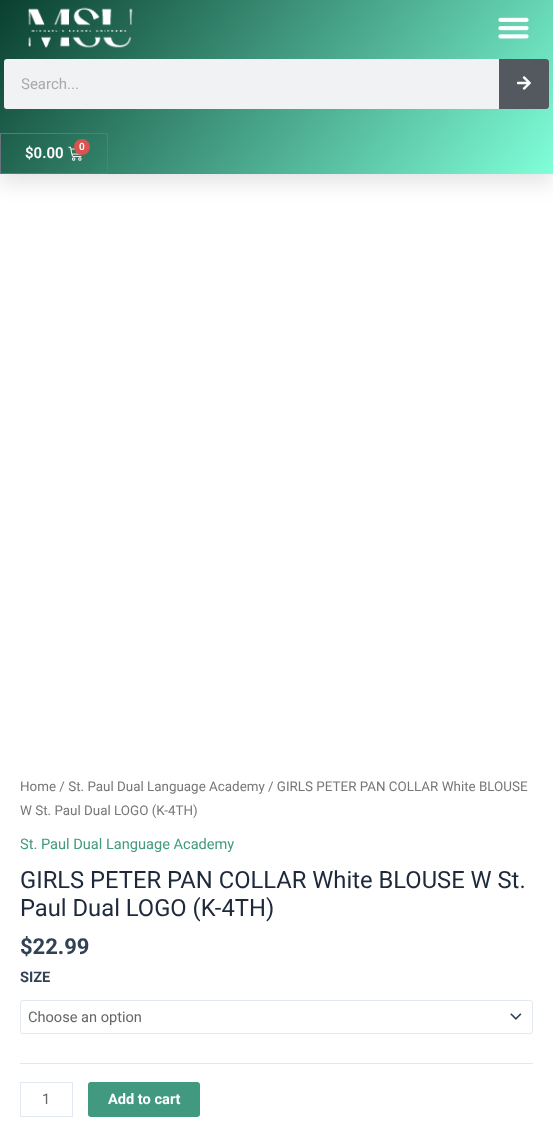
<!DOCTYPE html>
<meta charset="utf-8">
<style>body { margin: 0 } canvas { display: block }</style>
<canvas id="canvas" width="553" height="1129"></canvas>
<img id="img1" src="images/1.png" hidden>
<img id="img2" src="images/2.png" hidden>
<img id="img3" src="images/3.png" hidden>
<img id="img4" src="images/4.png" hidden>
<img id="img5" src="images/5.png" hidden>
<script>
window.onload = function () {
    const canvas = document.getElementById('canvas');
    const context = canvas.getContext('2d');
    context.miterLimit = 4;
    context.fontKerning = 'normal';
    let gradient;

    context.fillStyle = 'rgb(255, 255, 255)';
    context.fillRect(0, 0, 553, 1129);
    context.fillStyle = 'rgba(0, 0, 0, 0.1)';
    context.filter = 'blur(10px)';
    context.beginPath();
    context.rect(0, 10, 553, 174);
    context.fill();
    context.filter = 'none';
    gradient = context.createLinearGradient(71, -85, 482, 259);
    gradient.addColorStop(0, 'rgb(10, 63, 47)');
    gradient.addColorStop(1, 'rgb(128, 255, 217)');
    context.fillStyle = gradient;
    context.fillRect(0, 0, 553, 174);
    context.drawImage(document.getElementById('img1'), 28, 7, 105, 41);
    context.drawImage(document.getElementById('img2'), 498, 17, 31, 22);
    context.fillStyle = 'rgb(241, 242, 243)';
    context.beginPath();
    context.roundRect(4, 59, 545, 50, 3);
    context.fill();
    context.fillStyle = 'rgb(84, 89, 95)';
    context.beginPath();
    context.roundRect(499, 59, 50, 50, [0, 3, 3, 0]);
    context.fill();
    context.drawImage(document.getElementById('img3'), 517, 76, 14, 14);
    context.strokeStyle = 'rgb(105, 114, 125)';
    context.strokeRect(0.5, 133.5, 107, 40);
    context.drawImage(document.getElementById('img4'), 68, 146, 14, 15);
    context.fillStyle = 'rgb(217, 83, 79)';
    context.beginPath();
    context.arc(82, 147, 8, 0, 2 * Math.PI);
    context.fill();
    context.fillStyle = 'rgb(226, 232, 240)';
    context.fillRect(20, 1063, 513, 1);
    context.drawImage(document.getElementById('img5'), 510, 1013, 12, 7);
    context.beginPath();
    context.roundRect(20.5, 1000.5, 512, 33, 2.5);
    context.strokeStyle = 'rgb(226, 232, 240)';
    context.stroke();
    context.strokeRect(20.5, 1082.5, 52, 34);
    context.fillStyle = 'rgb(65, 153, 127)';
    context.beginPath();
    context.roundRect(88, 1082, 112, 35, 3);
    context.fill();
    context.font = '15px Roboto';
    context.fillStyle = 'rgb(170, 170, 170)';
    context.fillText('Search...', 21, 89);
    context.font = '600 15px Roboto';
    context.fillStyle = 'rgb(255, 255, 255)';
    context.fillText('$0.00', 25, 158);
    context.font = '600 10px Roboto';
    context.fillText('0', 79, 150);
    context.font = '13.4px Roboto';
    context.fillStyle = 'rgb(119, 119, 119)';
    context.fillText('Home / St. Paul Dual Language Academy', 20, 791);
    context.fillText('/ GIRLS PETER PAN COLLAR White BLOUSE', 268, 791);
    context.fillText('W St. Paul Dual LOGO (K-4TH)', 20, 815);
    context.font = '14.6px Roboto';
    context.fillStyle = 'rgb(65, 153, 127)';
    context.fillText('St. Paul Dual Language Academy', 20, 849);
    context.font = '23.75px Roboto';
    context.fillStyle = 'rgb(30, 41, 59)';
    context.fillText('GIRLS PETER PAN COLLAR White BLOUSE W St.', 20, 888);
    context.fillText('Paul Dual LOGO (K-4TH)', 20, 916);
    context.font = 'bold 22px Roboto';
    context.fillStyle = 'rgb(51, 65, 85)';
    context.fillText('$22.99', 20, 954);
    context.font = 'bold 14.6px Roboto';
    context.fillText('SIZE', 20, 982);
    context.font = '14.6px Roboto';
    context.fillStyle = 'rgb(102, 102, 102)';
    context.fillText('Choose an option', 28, 1022);
    context.fillText('1', 42, 1104);
    context.font = 'bold 14.6px Roboto';
    context.fillStyle = 'rgb(255, 255, 255)';
    context.fillText('Add to cart', 108, 1104);
};
</script>
